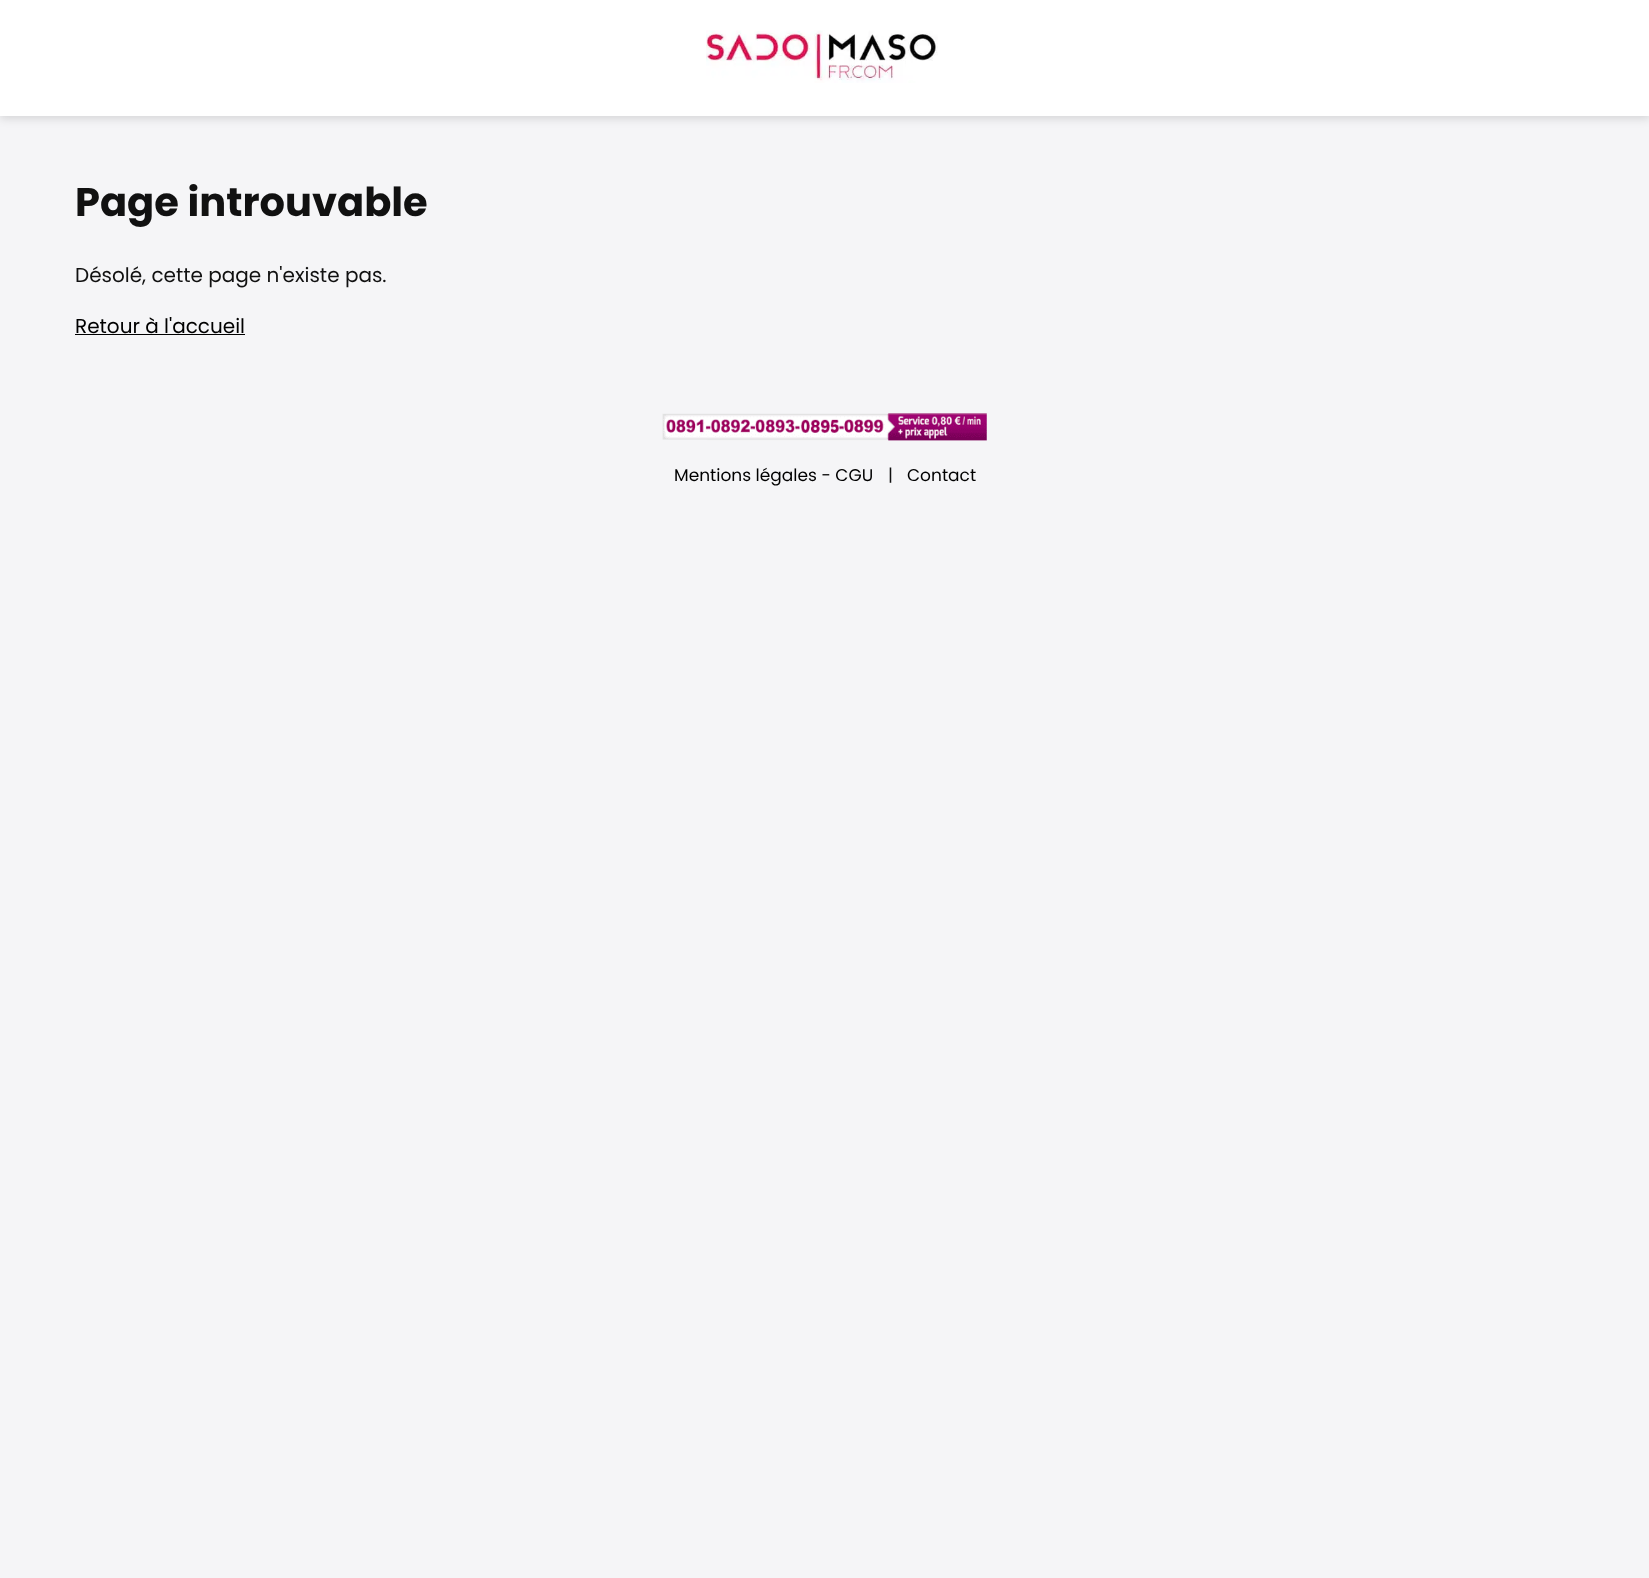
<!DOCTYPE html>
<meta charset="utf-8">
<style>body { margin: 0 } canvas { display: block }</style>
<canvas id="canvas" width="1649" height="1578"></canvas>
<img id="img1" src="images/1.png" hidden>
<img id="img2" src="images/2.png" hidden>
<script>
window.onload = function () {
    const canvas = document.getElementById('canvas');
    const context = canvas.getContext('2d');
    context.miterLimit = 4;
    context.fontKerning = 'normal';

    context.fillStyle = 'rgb(245, 245, 247)';
    context.fillRect(0, 0, 1649, 1578);
    context.fillStyle = 'rgba(0, 0, 0, 0.12)';
    context.filter = 'blur(4px)';
    context.beginPath();
    context.rect(0, 3, 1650, 116);
    context.fill();
    context.filter = 'none';
    context.fillStyle = 'rgb(255, 255, 255)';
    context.fillRect(0, 0, 1649, 116);
    context.drawImage(document.getElementById('img1'), 706, 30, 232, 53);
    context.fillStyle = 'rgb(0, 0, 0)';
    context.fillRect(75, 334, 170, 1);
    context.drawImage(document.getElementById('img2'), 662, 413, 325, 28);
    context.font = 'bold 40px Poppins';
    context.fillStyle = 'rgb(17, 17, 17)';
    context.fillText('Page introuvable', 75, 216);
    context.font = '20px Poppins';
    context.fillText('Désolé, cette page n\'existe pas.', 75, 282);
    context.fillStyle = 'rgb(0, 0, 0)';
    context.fillText('Retour à l\'accueil', 75, 333);
    context.font = '17px Poppins';
    context.fillText('Mentions légales - CGU', 674, 481);
    context.fillStyle = 'rgb(17, 17, 17)';
    context.fillText('|', 888, 481);
    context.fillStyle = 'rgb(0, 0, 0)';
    context.fillText('Contact', 907, 481);
};
</script>
